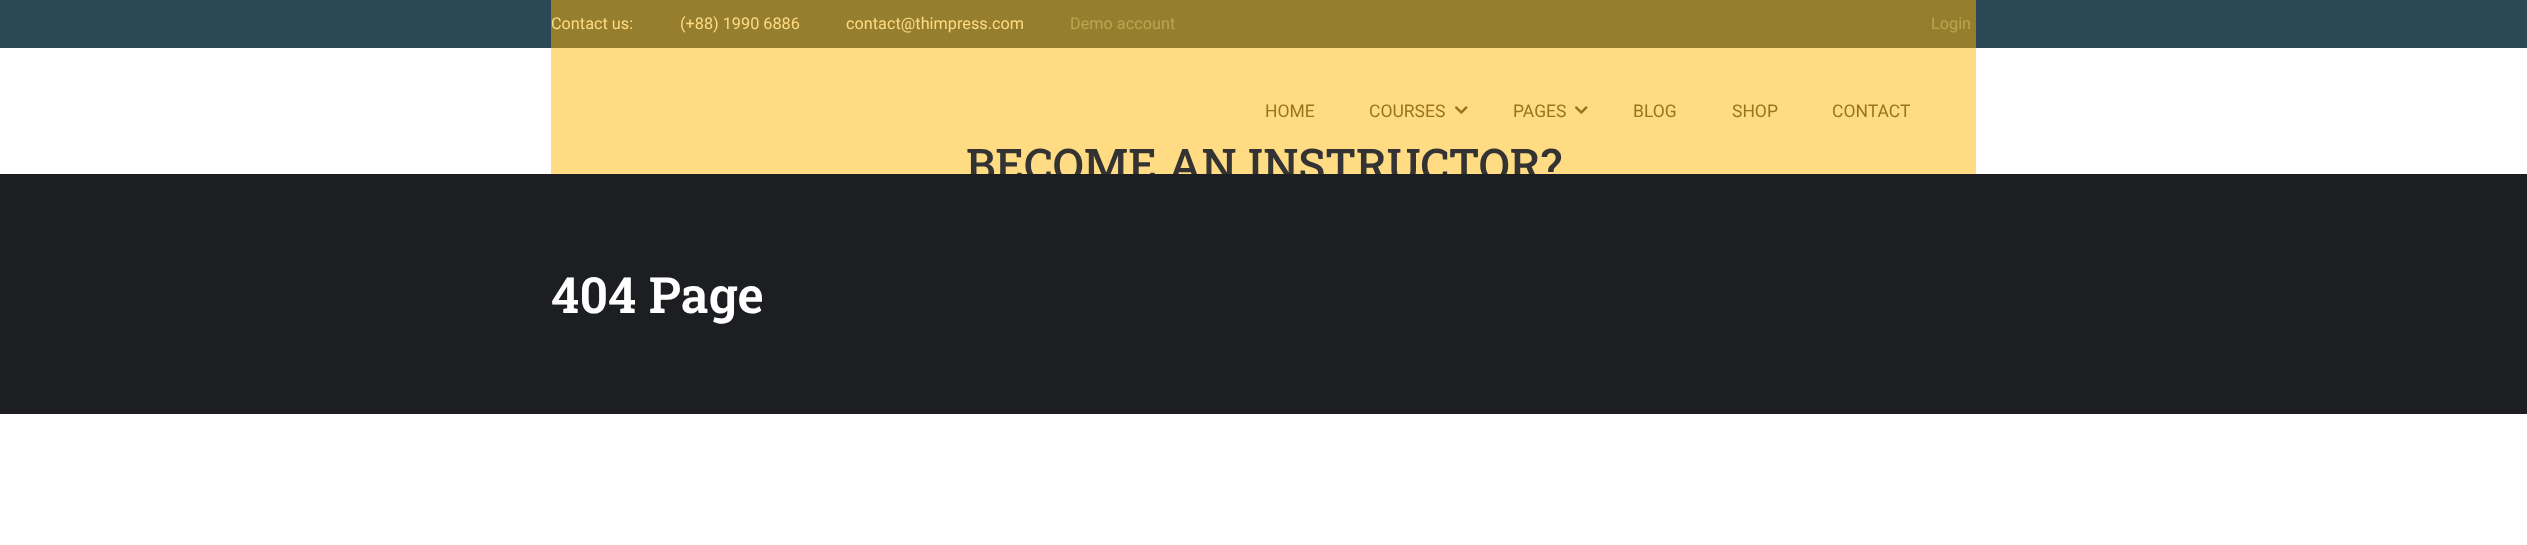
<!DOCTYPE html>
<meta charset="utf-8">
<style>body { margin: 0 } canvas { display: block }</style>
<canvas id="canvas" width="2527" height="545"></canvas>
<img id="img1" src="images/1.png" hidden>
<script>
window.onload = function () {
    const canvas = document.getElementById('canvas');
    const context = canvas.getContext('2d');
    context.miterLimit = 4;
    context.fontKerning = 'normal';

    context.fillStyle = 'rgb(255, 255, 255)';
    context.fillRect(0, 0, 2527, 545);
    context.fillStyle = 'rgb(255, 219, 131)';
    context.fillRect(551, 48, 1425, 126);
    context.fillStyle = 'rgb(42, 72, 86)';
    context.fillRect(0, 0, 2527, 48);
    context.fillStyle = 'rgb(149, 127, 46)';
    context.fillRect(551, 0, 1425, 48);
    context.drawImage(document.getElementById('img1'), 1455, 106, 13, 8);
    context.drawImage(document.getElementById('img1'), 1575, 106, 13, 8);
    context.font = '16.25px Roboto';
    context.fillStyle = 'rgb(255, 219, 131)';
    context.fillText('Contact us:', 551, 29);
    context.fillText('(+88) 1990 6886', 680, 29);
    context.fillText('contact@thimpress.com', 846, 29);
    context.fillStyle = 'rgb(191, 164, 80)';
    context.fillText('Demo account', 1070, 29);
    context.fillText('Login', 1931, 29);
    context.font = '17.5px Roboto';
    context.fillStyle = 'rgb(153, 117, 29)';
    context.fillText('HOME', 1265, 117);
    context.fillText('COURSES', 1369, 117);
    context.fillText('PAGES', 1513, 117);
    context.fillText('BLOG', 1633, 117);
    context.fillText('SHOP', 1732, 117);
    context.fillText('CONTACT', 1832, 117);
    context.font = '500 45px Roboto Slab';
    context.fillStyle = 'rgb(51, 51, 51)';
    context.fillText('BECOME AN INSTRUCTOR?', 966, 181);
    context.fillStyle = 'rgb(28, 30, 34)';
    context.fillRect(0, 174, 2527, 240);
    context.font = '600 50px Roboto Slab';
    context.fillStyle = 'rgb(255, 255, 255)';
    context.fillText('404 Page', 551, 313);
};
</script>
